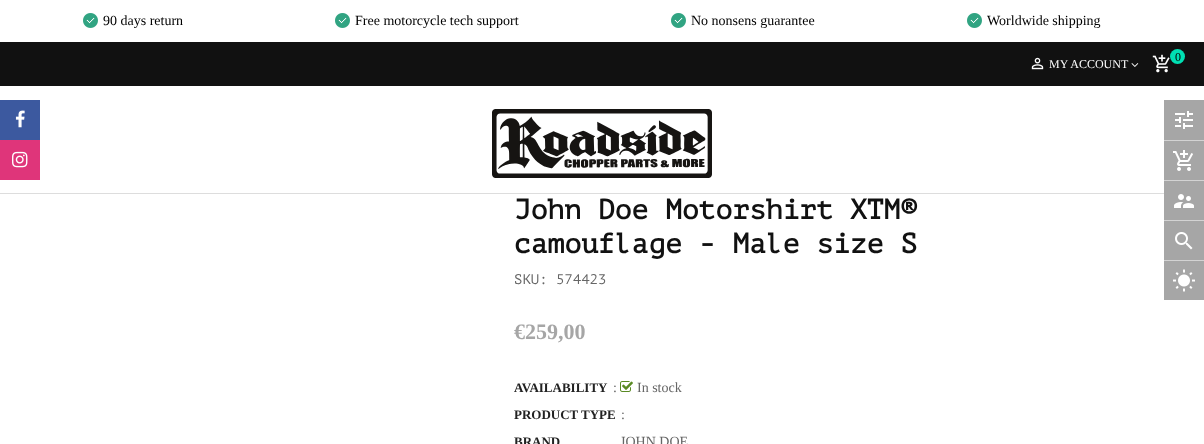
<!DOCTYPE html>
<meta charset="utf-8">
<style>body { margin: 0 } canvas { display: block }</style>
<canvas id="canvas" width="1204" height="444"></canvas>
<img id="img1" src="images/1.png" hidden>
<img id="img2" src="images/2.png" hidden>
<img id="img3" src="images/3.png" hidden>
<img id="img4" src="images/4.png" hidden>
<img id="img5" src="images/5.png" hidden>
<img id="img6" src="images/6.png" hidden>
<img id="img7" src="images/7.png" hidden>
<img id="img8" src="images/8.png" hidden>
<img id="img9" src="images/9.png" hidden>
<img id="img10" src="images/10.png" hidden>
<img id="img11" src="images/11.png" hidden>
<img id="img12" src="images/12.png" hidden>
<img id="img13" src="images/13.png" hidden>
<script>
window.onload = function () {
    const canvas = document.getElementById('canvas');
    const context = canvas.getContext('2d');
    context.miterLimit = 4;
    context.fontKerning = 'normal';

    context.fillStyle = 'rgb(255, 255, 255)';
    context.fillRect(0, 0, 1204, 444);
    context.fillStyle = 'rgb(60, 89, 159)';
    context.fillRect(0, 100, 40, 40);
    context.drawImage(document.getElementById('img1'), 15, 110, 10, 18);
    context.fillStyle = 'rgb(223, 53, 122)';
    context.fillRect(0, 140, 40, 40);
    context.drawImage(document.getElementById('img2'), 12, 151, 16, 17);
    context.drawImage(document.getElementById('img3'), 83, 13, 15, 15);
    context.drawImage(document.getElementById('img3'), 335, 13, 15, 15);
    context.drawImage(document.getElementById('img3'), 671, 13, 15, 15);
    context.drawImage(document.getElementById('img3'), 967, 13, 15, 15);
    context.fillStyle = 'rgb(221, 221, 221)';
    context.fillRect(0, 193, 1164, 1);
    context.fillStyle = 'rgb(17, 17, 17)';
    context.fillRect(0, 42, 1204, 44);
    context.drawImage(document.getElementById('img4'), 1152, 54, 18, 19);
    context.fillStyle = 'rgb(0, 224, 179)';
    context.beginPath();
    context.arc(1177.5, 56.5, 7.5, 0, 2 * Math.PI);
    context.fill();
    context.drawImage(document.getElementById('img5'), 492, 109, 220, 69);
    context.drawImage(document.getElementById('img6'), 1031, 57, 13, 13);
    context.drawImage(document.getElementById('img7'), 1131, 63, 8, 4);
    context.drawImage(document.getElementById('img8'), 620, 381, 13, 11);
    context.fillStyle = 'rgb(166, 166, 166)';
    context.fillRect(1164, 100, 40, 40);
    context.drawImage(document.getElementById('img9'), 1175, 111, 18, 18);
    context.fillRect(1164, 141, 40, 39);
    context.fillStyle = 'rgb(211, 211, 211)';
    context.fillRect(1164, 140, 40, 1);
    context.drawImage(document.getElementById('img10'), 1173, 150, 20, 21);
    context.fillStyle = 'rgb(166, 166, 166)';
    context.fillRect(1164, 181, 40, 39);
    context.fillStyle = 'rgb(211, 211, 211)';
    context.fillRect(1164, 180, 40, 1);
    context.drawImage(document.getElementById('img11'), 1174, 194, 20, 14);
    context.fillStyle = 'rgb(166, 166, 166)';
    context.fillRect(1164, 221, 40, 39);
    context.fillStyle = 'rgb(211, 211, 211)';
    context.fillRect(1164, 220, 40, 1);
    context.drawImage(document.getElementById('img12'), 1175, 232, 18, 18);
    context.fillStyle = 'rgb(166, 166, 166)';
    context.fillRect(1164, 261, 40, 39);
    context.fillStyle = 'rgb(211, 211, 211)';
    context.fillRect(1164, 260, 40, 1);
    context.drawImage(document.getElementById('img13'), 1173, 269, 22, 23);
    context.font = '14px Liberation Serif';
    context.fillStyle = 'rgb(0, 0, 0)';
    context.fillText('90 days return', 103, 25);
    context.fillText('Free motorcycle tech support', 355, 25);
    context.fillText('No nonsens guarantee', 691, 25);
    context.fillText('Worldwide shipping', 987, 25);
    context.font = '12px Liberation Serif';
    context.fillText('0', 1175, 61);
    context.fillStyle = 'rgb(255, 255, 255)';
    context.fillText('MY ACCOUNT', 1049, 68);
    context.font = 'bold 28px PT Mono';
    context.fillStyle = 'rgb(17, 17, 17)';
    context.fillText('John Doe Motorshirt XTM®', 514, 219);
    context.fillText('camouflage - Male size S', 514, 253);
    context.font = '14px PT Mono';
    context.fillStyle = 'rgb(102, 102, 102)';
    context.fillText('SKU: 574423', 514, 284);
    context.font = 'bold 22px Liberation Serif';
    context.fillStyle = 'rgb(166, 166, 166)';
    context.fillText('€259,00', 514, 339);
    context.font = 'bold 13px Liberation Serif';
    context.fillStyle = 'rgb(34, 34, 34)';
    context.fillText('AVAILABILITY', 514, 392);
    context.font = '14px Liberation Serif';
    context.fillStyle = 'rgb(102, 102, 102)';
    context.fillText(':', 613, 392);
    context.fillText('In stock', 637, 392);
    context.font = 'bold 13px Liberation Serif';
    context.fillStyle = 'rgb(34, 34, 34)';
    context.fillText('PRODUCT TYPE', 514, 419);
    context.font = '14px Liberation Serif';
    context.fillStyle = 'rgb(102, 102, 102)';
    context.fillText(':', 621, 419);
    context.font = 'bold 13px Liberation Serif';
    context.fillStyle = 'rgb(34, 34, 34)';
    context.fillText('BRAND', 514, 446);
    context.font = '14px Liberation Serif';
    context.fillStyle = 'rgb(102, 102, 102)';
    context.fillText('JOHN DOE', 620, 446);
};
</script>
